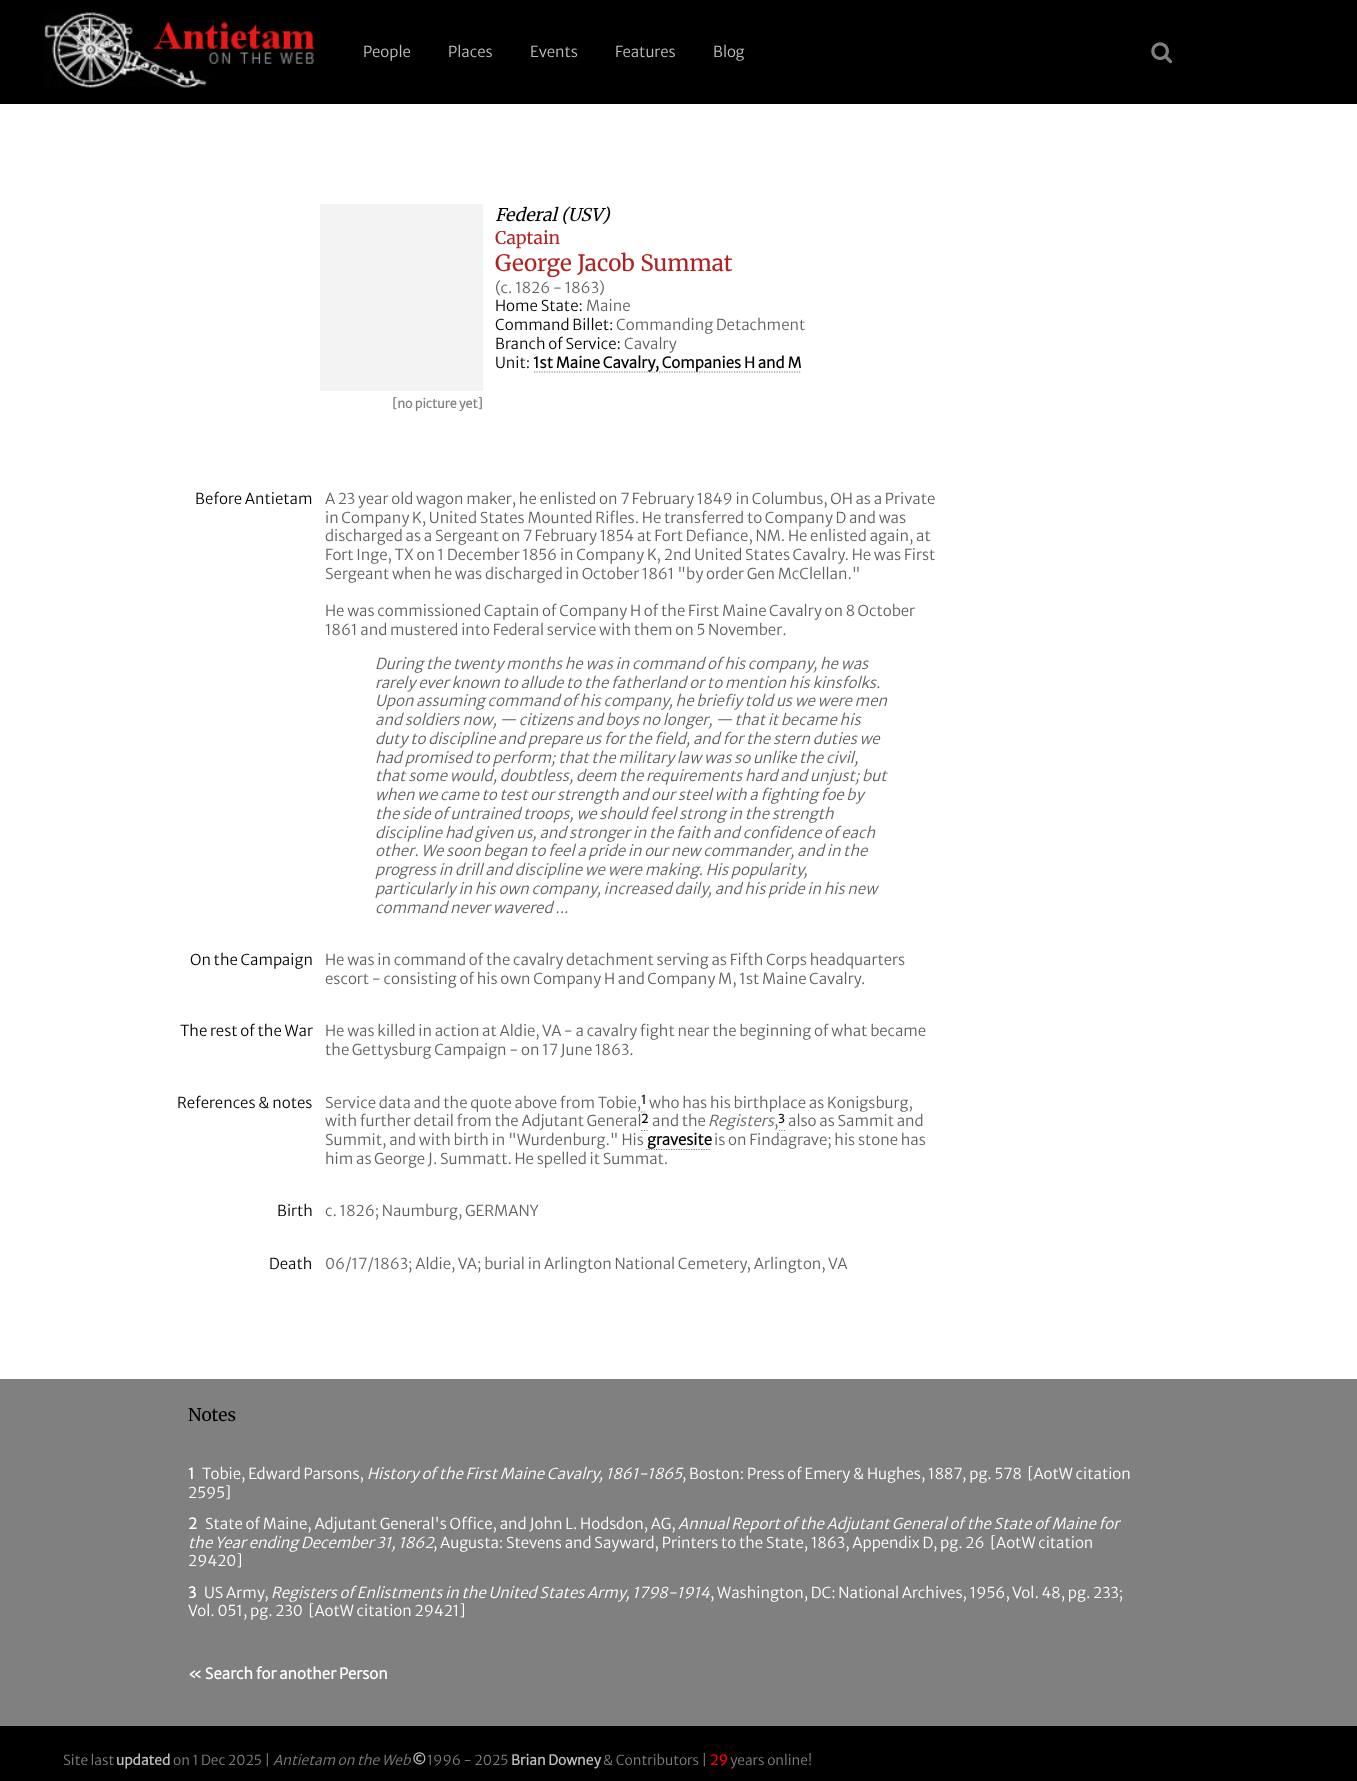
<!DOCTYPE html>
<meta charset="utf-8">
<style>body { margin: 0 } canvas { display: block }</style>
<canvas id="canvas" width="1357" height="1781"></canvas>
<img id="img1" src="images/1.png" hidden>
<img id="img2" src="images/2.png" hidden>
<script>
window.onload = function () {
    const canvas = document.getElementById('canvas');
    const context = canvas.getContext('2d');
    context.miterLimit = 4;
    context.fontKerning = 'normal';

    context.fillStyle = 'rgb(255, 255, 255)';
    context.fillRect(0, 0, 1357, 1781);
    context.fillStyle = 'rgb(0, 0, 0)';
    context.fillRect(0, 0, 1357, 104);
    context.drawImage(document.getElementById('img1'), 43, 12, 271, 76);
    context.drawImage(document.getElementById('img2'), 1151, 42, 22, 22);
    context.beginPath();
    context.moveTo(534, 372);
    context.lineTo(801, 372);
    context.strokeStyle = 'rgb(128, 128, 128)';
    context.lineWidth = 1.2;
    context.setLineDash([1.25, 1.25]);
    context.stroke();
    context.fillStyle = 'rgb(243, 243, 243)';
    context.fillRect(320, 204, 163, 187);
    context.beginPath();
    context.moveTo(641, 1112);
    context.lineTo(642.5, 1112);
    context.moveTo(644, 1112);
    context.lineTo(645, 1112);
    context.setLineDash([]);
    context.stroke();
    context.beginPath();
    context.moveTo(641, 1130.5);
    context.lineTo(642.5, 1130.5);
    context.moveTo(644, 1130.5);
    context.lineTo(645, 1130.5);
    context.moveTo(646.5, 1130.5);
    context.lineTo(647.5, 1130.5);
    context.stroke();
    context.beginPath();
    context.moveTo(779, 1130.5);
    context.lineTo(780, 1130.5);
    context.moveTo(781.5, 1130.5);
    context.lineTo(782.5, 1130.5);
    context.moveTo(784, 1130.5);
    context.lineTo(785, 1130.5);
    context.stroke();
    context.beginPath();
    context.moveTo(646, 1149.5);
    context.lineTo(711, 1149.5);
    context.setLineDash([1.25, 1.25]);
    context.stroke();
    context.fillStyle = 'rgb(128, 128, 128)';
    context.fillRect(0, 1379, 1357, 347);
    context.fillStyle = 'rgb(0, 0, 0)';
    context.fillRect(0, 1726, 1357, 55);
    context.font = '300 15px Merriweather Sans';
    context.fillStyle = 'rgb(192, 192, 192)';
    context.fillText('People', 363, 57);
    context.fillText('Places', 448, 57);
    context.fillText('Events', 530, 57);
    context.fillText('Features', 615, 57);
    context.fillText('Blog', 713, 57);
    context.font = 'italic 300 17.5px Merriweather';
    context.fillStyle = 'rgb(0, 0, 0)';
    context.fillText('Federal (USV)', 495, 221);
    context.font = '300 17.5px Merriweather';
    context.fillStyle = 'rgb(178, 34, 34)';
    context.fillText('Captain', 495, 244);
    context.font = '300 22.5px Merriweather';
    context.fillText('George Jacob Summat', 495, 271);
    context.font = '300 15px Merriweather Sans';
    context.fillStyle = 'rgb(96, 96, 96)';
    context.fillText('(c. 1826 - 1863)', 495, 293);
    context.fillStyle = 'rgb(0, 0, 0)';
    context.fillText('Home State:', 495, 311);
    context.fillStyle = 'rgb(96, 96, 96)';
    context.fillText('Maine', 586, 311);
    context.fillStyle = 'rgb(0, 0, 0)';
    context.fillText('Command Billet:', 495, 330);
    context.fillStyle = 'rgb(96, 96, 96)';
    context.fillText('Commanding Detachment', 616, 330);
    context.fillStyle = 'rgb(0, 0, 0)';
    context.fillText('Branch of Service:', 495, 349);
    context.fillStyle = 'rgb(96, 96, 96)';
    context.fillText('Cavalry', 624, 349);
    context.fillStyle = 'rgb(0, 0, 0)';
    context.fillText('Unit:', 495, 368);
    context.font = 'bold 15px Merriweather Sans';
    context.fillText('1st Maine Cavalry, Companies H and M', 533, 368);
    context.font = 'bold 12.5px Merriweather Sans';
    context.fillStyle = 'rgb(128, 128, 128)';
    context.fillText('[no picture yet]', 392, 408);
    context.font = '300 15px Merriweather Sans';
    context.fillStyle = 'rgb(0, 0, 0)';
    context.fillText('Before Antietam', 195, 504);
    context.fillStyle = 'rgb(96, 96, 96)';
    context.fillText('A 23 year old wagon maker, he enlisted on 7 February 1849 in Columbus, OH as a Private', 325, 504);
    context.fillText('in Company K, United States Mounted Rifles. He transferred to Company D and was', 325, 523);
    context.fillText('discharged as a Sergeant on 7 February 1854 at Fort Defiance, NM. He enlisted again, at', 325, 541);
    context.fillText('Fort Inge, TX on 1 December 1856 in Company K, 2nd United States Cavalry. He was First', 325, 560);
    context.fillText('Sergeant when he was discharged in October 1861 "by order Gen McClellan."', 325, 579);
    context.fillText('He was commissioned Captain of Company H of the First Maine Cavalry on 8 October', 325, 616);
    context.fillText('1861 and mustered into Federal service with them on 5 November.', 325, 635);
    context.font = 'italic 300 15px Merriweather Sans';
    context.fillText('During the twenty months he was in command of his company, he was', 375, 669);
    context.fillText('rarely ever known to allude to the fatherland or to mention his kinsfolks.', 375, 688);
    context.fillText('Upon assuming command of his company, he briefiy told us we were men', 375, 706);
    context.fillText('and soldiers now, — citizens and boys no longer, — that it became his', 375, 725);
    context.fillText('duty to discipline and prepare us for the field, and for the stern duties we', 375, 744);
    context.fillText('had promised to perform; that the military law was so unlike the civil,', 375, 763);
    context.fillText('that some would, doubtless, deem the requirements hard and unjust; but', 375, 781);
    context.fillText('when we came to test our strength and our steel with a fighting foe by', 375, 800);
    context.fillText('the side of untrained troops, we should feel strong in the strength', 375, 819);
    context.fillText('discipline had given us, and stronger in the faith and confidence of each', 375, 838);
    context.fillText('other. We soon began to feel a pride in our new commander, and in the', 375, 856);
    context.fillText('progress in drill and discipline we were making. His popularity,', 375, 875);
    context.fillText('particularly in his own company, increased daily, and his pride in his new', 375, 894);
    context.fillText('command never wavered ...', 375, 913);
    context.font = '300 15px Merriweather Sans';
    context.fillStyle = 'rgb(0, 0, 0)';
    context.fillText('On the Campaign', 190, 965);
    context.fillStyle = 'rgb(96, 96, 96)';
    context.fillText('He was in command of the cavalry detachment serving as Fifth Corps headquarters', 325, 965);
    context.fillText('escort - consisting of his own Company H and Company M, 1st Maine Cavalry.', 325, 984);
    context.fillStyle = 'rgb(0, 0, 0)';
    context.fillText('The rest of the War', 180, 1036);
    context.fillStyle = 'rgb(96, 96, 96)';
    context.fillText('He was killed in action at Aldie, VA - a cavalry fight near the beginning of what became', 325, 1036);
    context.fillText('the Gettysburg Campaign - on 17 June 1863.', 325, 1055);
    context.fillStyle = 'rgb(0, 0, 0)';
    context.fillText('References & notes', 177, 1108);
    context.fillStyle = 'rgb(96, 96, 96)';
    context.fillText('Service data and the quote above from Tobie,', 325, 1108);
    context.font = 'bold 12px Merriweather Sans';
    context.fillStyle = 'rgb(0, 0, 0)';
    context.fillText('1', 641, 1104);
    context.font = '300 15px Merriweather Sans';
    context.fillStyle = 'rgb(96, 96, 96)';
    context.fillText('who has his birthplace as Konigsburg,', 649, 1108);
    context.fillText('with further detail from the Adjutant General', 325, 1126);
    context.font = 'bold 12px Merriweather Sans';
    context.fillStyle = 'rgb(0, 0, 0)';
    context.fillText('2', 641, 1123);
    context.font = '300 15px Merriweather Sans';
    context.fillStyle = 'rgb(96, 96, 96)';
    context.fillText('and the', 652, 1126);
    context.font = 'italic 300 15px Merriweather Sans';
    context.fillText('Registers', 708, 1126);
    context.font = 'bold 12px Merriweather Sans';
    context.fillStyle = 'rgb(0, 0, 0)';
    context.fillText('3', 778, 1123);
    context.font = '300 15px Merriweather Sans';
    context.fillStyle = 'rgb(96, 96, 96)';
    context.fillText('also as Sammit and', 788, 1126);
    context.fillText(',', 774, 1126);
    context.fillText('Summit, and with birth in "Wurdenburg." His', 325, 1145);
    context.font = 'bold 15px Merriweather Sans';
    context.fillStyle = 'rgb(0, 0, 0)';
    context.fillText('gravesite', 647, 1145);
    context.font = '300 15px Merriweather Sans';
    context.fillStyle = 'rgb(96, 96, 96)';
    context.fillText('is on Findagrave; his stone has', 714, 1145);
    context.fillText('him as George J. Summatt. He spelled it Summat.', 325, 1164);
    context.fillStyle = 'rgb(0, 0, 0)';
    context.fillText('Birth', 277, 1216);
    context.fillStyle = 'rgb(96, 96, 96)';
    context.fillText('c. 1826; Naumburg, GERMANY', 325, 1216);
    context.fillStyle = 'rgb(0, 0, 0)';
    context.fillText('Death', 269, 1269);
    context.fillStyle = 'rgb(96, 96, 96)';
    context.fillText('06/17/1863; Aldie, VA; burial in Arlington National Cemetery, Arlington, VA', 325, 1269);
    context.font = '300 17.5px Merriweather';
    context.fillStyle = 'rgb(0, 0, 0)';
    context.fillText('Notes', 188, 1421);
    context.font = 'bold 15px Merriweather Sans';
    context.fillStyle = 'rgb(255, 255, 255)';
    context.fillText('1', 188, 1479);
    context.font = '300 15px Merriweather Sans';
    context.fillText('Tobie, Edward Parsons,', 202, 1479);
    context.font = 'italic 300 15px Merriweather Sans';
    context.fillText('History of the First Maine Cavalry, 1861-1865', 367, 1479);
    context.font = '300 15px Merriweather Sans';
    context.fillText(', Boston: Press of Emery & Hughes, 1887, pg. 578  [AotW citation', 682, 1479);
    context.fillText('2595]', 188, 1498);
    context.font = 'bold 15px Merriweather Sans';
    context.fillText('2', 188, 1529);
    context.font = '300 15px Merriweather Sans';
    context.fillText('State of Maine, Adjutant General\'s Office, and John L. Hodsdon, AG,', 205, 1529);
    context.font = 'italic 300 15px Merriweather Sans';
    context.fillText('Annual Report of the Adjutant General of the State of Maine for', 678, 1529);
    context.fillText('the Year ending December 31, 1862', 188, 1548);
    context.font = '300 15px Merriweather Sans';
    context.fillText(', Augusta: Stevens and Sayward, Printers to the State, 1863, Appendix D, pg. 26  [AotW citation', 433, 1548);
    context.fillText('29420]', 188, 1566);
    context.font = 'bold 15px Merriweather Sans';
    context.fillText('3', 188, 1598);
    context.font = '300 15px Merriweather Sans';
    context.fillText('US Army,', 204, 1598);
    context.font = 'italic 300 15px Merriweather Sans';
    context.fillText('Registers of Enlistments in the United States Army, 1798-1914', 271, 1598);
    context.font = '300 15px Merriweather Sans';
    context.fillText(', Washington, DC: National Archives, 1956, Vol. 48, pg. 233;', 710, 1598);
    context.fillText('Vol. 051, pg. 230  [AotW citation 29421]', 188, 1616);
    context.font = 'bold 15px Merriweather Sans';
    context.fillText('« Search for another Person', 188, 1679);
    context.font = '300 13.75px Merriweather Sans';
    context.fillStyle = 'rgb(128, 128, 128)';
    context.fillText('Site last', 63, 1765);
    context.font = 'bold 13.75px Merriweather Sans';
    context.fillStyle = 'rgb(192, 192, 192)';
    context.fillText('updated', 116, 1765);
    context.font = '300 13.75px Merriweather Sans';
    context.fillStyle = 'rgb(128, 128, 128)';
    context.fillText('on 1 Dec 2025 |', 173, 1765);
    context.font = 'italic 300 13.75px Merriweather Sans';
    context.fillText('Antietam on the Web', 273, 1765);
    context.font = 'bold 13.75px Merriweather Sans';
    context.fillStyle = 'rgb(192, 192, 192)';
    context.fillText('©', 412, 1765);
    context.font = '300 13.75px Merriweather Sans';
    context.fillStyle = 'rgb(128, 128, 128)';
    context.fillText('1996 - 2025', 427, 1765);
    context.font = 'bold 13.75px Merriweather Sans';
    context.fillStyle = 'rgb(192, 192, 192)';
    context.fillText('Brian Downey', 511, 1765);
    context.font = '300 13.75px Merriweather Sans';
    context.fillStyle = 'rgb(128, 128, 128)';
    context.fillText('& Contributors |', 603, 1765);
    context.font = 'bold 13.75px Merriweather Sans';
    context.fillStyle = 'rgb(255, 0, 0)';
    context.fillText('29', 710, 1765);
    context.font = '300 13.75px Merriweather Sans';
    context.fillStyle = 'rgb(128, 128, 128)';
    context.fillText('years online!', 730, 1765);
};
</script>
